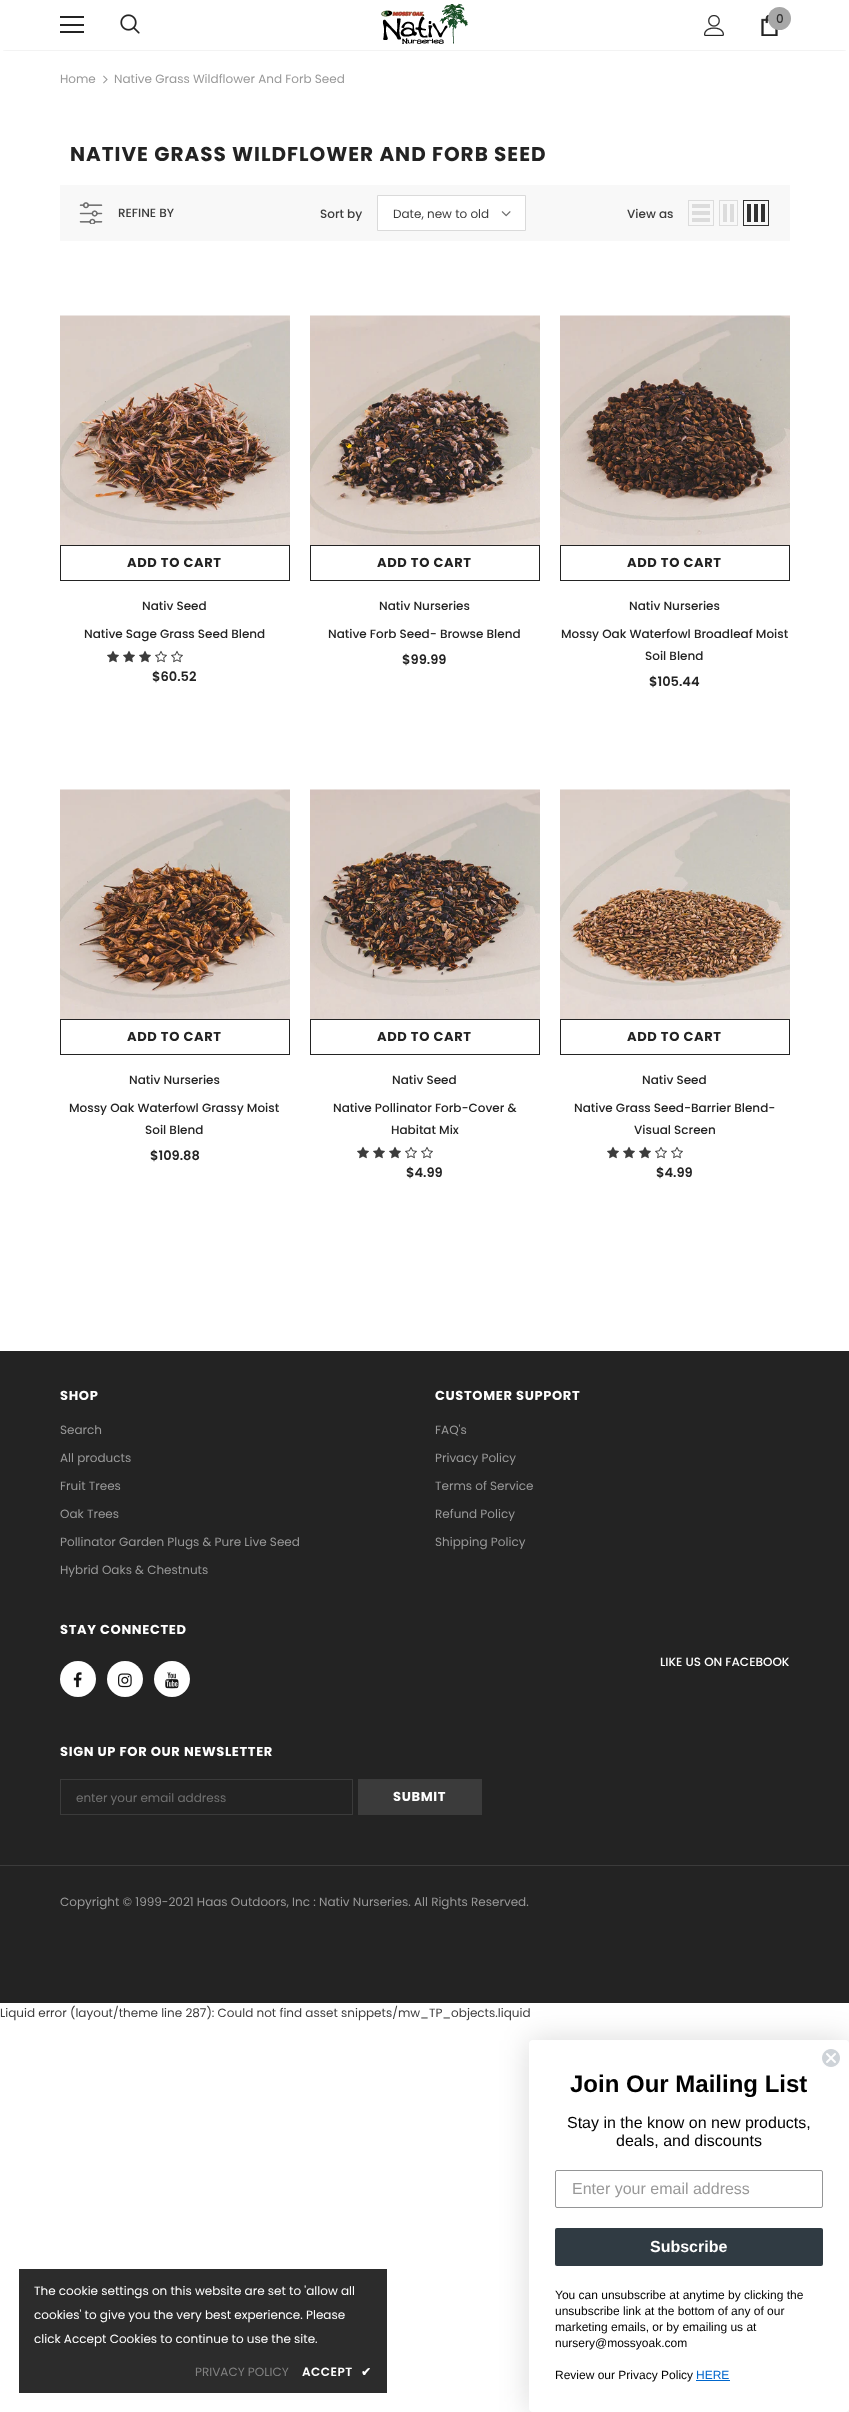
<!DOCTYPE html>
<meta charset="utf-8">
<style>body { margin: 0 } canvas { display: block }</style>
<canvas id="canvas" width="849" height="2412"></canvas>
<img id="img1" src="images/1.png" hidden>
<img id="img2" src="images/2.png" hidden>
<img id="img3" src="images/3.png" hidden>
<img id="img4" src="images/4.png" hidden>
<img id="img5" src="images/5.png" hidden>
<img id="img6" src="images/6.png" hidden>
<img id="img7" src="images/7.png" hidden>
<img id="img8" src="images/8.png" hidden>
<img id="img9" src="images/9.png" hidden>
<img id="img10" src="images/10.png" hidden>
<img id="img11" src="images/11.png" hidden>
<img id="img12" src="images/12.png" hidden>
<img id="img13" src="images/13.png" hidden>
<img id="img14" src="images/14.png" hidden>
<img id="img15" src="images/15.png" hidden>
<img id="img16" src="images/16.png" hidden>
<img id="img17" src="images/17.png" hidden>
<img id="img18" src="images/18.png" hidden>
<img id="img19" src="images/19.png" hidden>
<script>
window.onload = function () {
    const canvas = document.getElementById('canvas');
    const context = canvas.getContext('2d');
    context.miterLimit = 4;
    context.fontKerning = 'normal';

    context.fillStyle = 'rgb(255, 255, 255)';
    context.fillRect(0, 0, 849, 2412);
    context.save();
    context.beginPath();
    context.rect(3, 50, 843, 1);
    context.clip();
    context.fillStyle = 'rgba(0, 0, 0, 0.12)';
    context.filter = 'blur(1.5px)';
    context.beginPath();
    context.rect(3, 6, 843, 44);
    context.fill();
    context.filter = 'none';
    context.restore();
    context.fillStyle = 'rgb(35, 35, 35)';
    context.fillRect(60, 16, 24, 2);
    context.fillRect(60, 24, 24, 2);
    context.fillRect(60, 31, 24, 2);
    context.drawImage(document.getElementById('img1'), 120, 14, 20, 20);
    context.drawImage(document.getElementById('img2'), 381, 3, 87, 41);
    context.drawImage(document.getElementById('img3'), 704, 15, 20, 21);
    context.drawImage(document.getElementById('img4'), 761, 15, 17, 21);
    context.fillStyle = 'rgb(167, 167, 167)';
    context.beginPath();
    context.arc(779.5, 18.5, 11.5, 0, 2 * Math.PI);
    context.fill();
    context.drawImage(document.getElementById('img5'), 103, 75, 5, 9);
    context.fillStyle = 'rgb(248, 248, 248)';
    context.fillRect(60, 185, 730, 56);
    context.drawImage(document.getElementById('img6'), 79, 202, 24, 22);
    context.fillStyle = 'rgb(255, 255, 255)';
    context.beginPath();
    context.rect(377.5, 195.5, 148, 35);
    context.fill();
    context.strokeStyle = 'rgb(218, 218, 218)';
    context.stroke();
    context.drawImage(document.getElementById('img7'), 501, 211, 10, 6);
    context.strokeStyle = 'rgb(220, 220, 220)';
    context.strokeRect(688.5, 200.5, 25, 25);
    context.fillStyle = 'rgb(220, 220, 220)';
    context.fillRect(692, 218, 18, 4);
    context.fillRect(692, 211, 18, 4);
    context.fillRect(692, 204, 18, 4);
    context.strokeRect(719.5, 200.5, 18, 25);
    context.fillRect(730, 204, 4, 18);
    context.fillRect(723, 204, 4, 18);
    context.strokeStyle = 'rgb(50, 50, 50)';
    context.strokeRect(743.5, 200.5, 25, 25);
    context.fillStyle = 'rgb(50, 50, 50)';
    context.fillRect(761, 204, 4, 18);
    context.fillRect(754, 204, 4, 18);
    context.fillRect(747, 204, 4, 18);
    context.drawImage(document.getElementById('img8'), 60, 315, 230, 230);
    context.strokeStyle = 'rgb(35, 35, 35)';
    context.strokeRect(60.5, 545.5, 229, 35);
    context.drawImage(document.getElementById('img9'), 107, 650, 12, 13);
    context.drawImage(document.getElementById('img9'), 123, 650, 12, 13);
    context.drawImage(document.getElementById('img9'), 139, 650, 12, 13);
    context.drawImage(document.getElementById('img10'), 155, 650, 12, 13);
    context.drawImage(document.getElementById('img10'), 171, 650, 12, 13);
    context.drawImage(document.getElementById('img11'), 310, 315, 230, 230);
    context.strokeRect(310.5, 545.5, 229, 35);
    context.drawImage(document.getElementById('img12'), 560, 315, 230, 230);
    context.strokeRect(560.5, 545.5, 229, 35);
    context.drawImage(document.getElementById('img13'), 60, 789, 230, 230);
    context.strokeRect(60.5, 1019.5, 229, 35);
    context.drawImage(document.getElementById('img14'), 310, 789, 230, 230);
    context.strokeRect(310.5, 1019.5, 229, 35);
    context.drawImage(document.getElementById('img9'), 357, 1146, 12, 13);
    context.drawImage(document.getElementById('img9'), 373, 1146, 12, 13);
    context.drawImage(document.getElementById('img9'), 389, 1146, 12, 13);
    context.drawImage(document.getElementById('img10'), 405, 1146, 12, 13);
    context.drawImage(document.getElementById('img10'), 421, 1146, 12, 13);
    context.drawImage(document.getElementById('img15'), 560, 789, 230, 230);
    context.strokeRect(560.5, 1019.5, 229, 35);
    context.drawImage(document.getElementById('img9'), 607, 1146, 12, 13);
    context.drawImage(document.getElementById('img9'), 623, 1146, 12, 13);
    context.drawImage(document.getElementById('img9'), 639, 1146, 12, 13);
    context.drawImage(document.getElementById('img10'), 655, 1146, 12, 13);
    context.drawImage(document.getElementById('img10'), 671, 1146, 12, 13);
    context.fillStyle = 'rgb(35, 35, 35)';
    context.fillRect(0, 1351, 849, 652);
    context.fillStyle = 'rgb(255, 255, 255)';
    context.beginPath();
    context.arc(78, 1679, 18, 0, 2 * Math.PI);
    context.fill();
    context.drawImage(document.getElementById('img16'), 73, 1672, 9, 16);
    context.beginPath();
    context.arc(125, 1679, 18, 0, 2 * Math.PI);
    context.fill();
    context.drawImage(document.getElementById('img17'), 118, 1673, 14, 15);
    context.beginPath();
    context.arc(172, 1679, 18, 0, 2 * Math.PI);
    context.fill();
    context.drawImage(document.getElementById('img18'), 165, 1672, 14, 17);
    context.strokeStyle = 'rgb(59, 59, 59)';
    context.strokeRect(60.5, 1779.5, 292, 35);
    context.fillStyle = 'rgb(59, 59, 59)';
    context.fillRect(358, 1779, 124, 36);
    context.fillRect(0, 1865, 849, 1);
    context.fillStyle = 'rgb(44, 44, 44)';
    context.fillRect(19, 2269, 368, 124);
    context.fillStyle = 'rgba(0, 0, 0, 0.15)';
    context.filter = 'blur(15px)';
    context.beginPath();
    context.roundRect(529, 2040, 320, 372, 4);
    context.fill();
    context.filter = 'none';
    context.fillStyle = 'rgb(255, 255, 255)';
    context.beginPath();
    context.roundRect(529, 2040, 320, 372, 4);
    context.fill();
    context.drawImage(document.getElementById('img19'), 822, 2049, 18, 18);
    context.beginPath();
    context.roundRect(555.5, 2170.5, 267, 37, 1.5);
    context.strokeStyle = 'rgb(148, 149, 150)';
    context.stroke();
    context.fillStyle = 'rgb(48, 59, 67)';
    context.beginPath();
    context.roundRect(555, 2228, 268, 38, 2);
    context.fill();
    context.fillStyle = 'rgb(0, 102, 204)';
    context.fillRect(696, 2380, 34, 1);
    context.font = '500 12px Poppins';
    context.fillStyle = 'rgb(50, 50, 50)';
    context.fillText('0', 776, 23);
    context.font = '12px Poppins';
    context.fillStyle = 'rgb(153, 153, 153)';
    context.fillText('Home', 60, 83);
    context.fillText('Native Grass Wildflower And Forb Seed', 114, 83);
    context.letterSpacing = '1px';
    context.font = 'bold 20px Poppins';
    context.fillStyle = 'rgb(35, 35, 35)';
    context.fillText('NATIVE GRASS WILDFLOWER AND FORB SEED', 70, 161);
    context.letterSpacing = '0px';
    context.font = '500 12px Poppins';
    context.fillStyle = 'rgb(60, 60, 60)';
    context.fillText('REFINE BY', 118, 217);
    context.fillText('Sort by', 320, 218);
    context.font = '12px Poppins';
    context.fillText('Date, new to old', 393, 218);
    context.font = '500 12px Poppins';
    context.fillText('View as', 627, 218);
    context.letterSpacing = '0.65px';
    context.font = 'bold 13px Poppins';
    context.fillStyle = 'rgb(35, 35, 35)';
    context.fillText('ADD TO CART', 127, 567);
    context.letterSpacing = '0px';
    context.font = '500 12px Poppins';
    context.fillText('Nativ Seed', 142, 610);
    context.fillText('Native Sage Grass Seed Blend', 84, 638);
    context.font = '600 13px Poppins';
    context.fillText('$60.52', 152, 681);
    context.letterSpacing = '0.65px';
    context.font = 'bold 13px Poppins';
    context.fillText('ADD TO CART', 377, 567);
    context.letterSpacing = '0px';
    context.font = '500 12px Poppins';
    context.fillText('Nativ Nurseries', 379, 610);
    context.fillText('Native Forb Seed- Browse Blend', 328, 638);
    context.font = '600 13px Poppins';
    context.fillText('$99.99', 402, 664);
    context.letterSpacing = '0.65px';
    context.font = 'bold 13px Poppins';
    context.fillText('ADD TO CART', 627, 567);
    context.letterSpacing = '0px';
    context.font = '500 12px Poppins';
    context.fillText('Nativ Nurseries', 629, 610);
    context.fillText('Mossy Oak Waterfowl Broadleaf Moist', 561, 638);
    context.fillText('Soil Blend', 645, 660);
    context.font = '600 13px Poppins';
    context.fillText('$105.44', 649, 686);
    context.letterSpacing = '0.65px';
    context.font = 'bold 13px Poppins';
    context.fillText('ADD TO CART', 127, 1041);
    context.letterSpacing = '0px';
    context.font = '500 12px Poppins';
    context.fillText('Nativ Nurseries', 129, 1084);
    context.fillText('Mossy Oak Waterfowl Grassy Moist', 69, 1112);
    context.fillText('Soil Blend', 145, 1134);
    context.font = '600 13px Poppins';
    context.fillText('$109.88', 150, 1160);
    context.letterSpacing = '0.65px';
    context.font = 'bold 13px Poppins';
    context.fillText('ADD TO CART', 377, 1041);
    context.letterSpacing = '0px';
    context.font = '500 12px Poppins';
    context.fillText('Nativ Seed', 392, 1084);
    context.fillText('Native Pollinator Forb-Cover &', 333, 1112);
    context.fillText('Habitat Mix', 391, 1134);
    context.font = '600 13px Poppins';
    context.fillText('$4.99', 406, 1177);
    context.letterSpacing = '0.65px';
    context.font = 'bold 13px Poppins';
    context.fillText('ADD TO CART', 627, 1041);
    context.letterSpacing = '0px';
    context.font = '500 12px Poppins';
    context.fillText('Nativ Seed', 642, 1084);
    context.fillText('Native Grass Seed-Barrier Blend-', 574, 1112);
    context.fillText('Visual Screen', 634, 1134);
    context.font = '600 13px Poppins';
    context.fillText('$4.99', 656, 1177);
    context.letterSpacing = '0.65px';
    context.font = 'bold 13px Poppins';
    context.fillStyle = 'rgb(255, 255, 255)';
    context.fillText('SHOP', 60, 1400);
    context.letterSpacing = '0px';
    context.font = '12px Poppins';
    context.fillStyle = 'rgb(153, 153, 153)';
    context.fillText('Search', 60, 1434);
    context.fillText('All products', 60, 1462);
    context.fillText('Fruit Trees', 60, 1490);
    context.fillText('Oak Trees', 60, 1518);
    context.fillText('Pollinator Garden Plugs & Pure Live Seed', 60, 1546);
    context.fillText('Hybrid Oaks & Chestnuts', 60, 1574);
    context.letterSpacing = '0.65px';
    context.font = 'bold 13px Poppins';
    context.fillStyle = 'rgb(255, 255, 255)';
    context.fillText('CUSTOMER SUPPORT', 435, 1400);
    context.letterSpacing = '0px';
    context.font = '12px Poppins';
    context.fillStyle = 'rgb(153, 153, 153)';
    context.fillText('FAQ\'s', 435, 1434);
    context.fillText('Privacy Policy', 435, 1462);
    context.fillText('Terms of Service', 435, 1490);
    context.fillText('Refund Policy', 435, 1518);
    context.fillText('Shipping Policy', 435, 1546);
    context.letterSpacing = '0.65px';
    context.font = 'bold 13px Poppins';
    context.fillStyle = 'rgb(255, 255, 255)';
    context.fillText('STAY CONNECTED', 60, 1634);
    context.letterSpacing = '0px';
    context.font = '500 12px Poppins';
    context.fillText('LIKE US ON FACEBOOK', 660, 1666);
    context.letterSpacing = '0.65px';
    context.font = 'bold 13px Poppins';
    context.fillText('SIGN UP FOR OUR NEWSLETTER', 60, 1756);
    context.letterSpacing = '0px';
    context.font = '12px Poppins';
    context.fillStyle = 'rgb(113, 113, 113)';
    context.fillText('enter your email address', 76, 1802);
    context.letterSpacing = '0.65px';
    context.font = 'bold 13px Poppins';
    context.fillStyle = 'rgb(255, 255, 255)';
    context.fillText('SUBMIT', 393, 1801);
    context.letterSpacing = '0px';
    context.font = '12px Poppins';
    context.fillStyle = 'rgb(153, 153, 153)';
    context.fillText('Copyright © 1999-2021 Haas Outdoors, Inc : Nativ Nurseries. All Rights Reserved.', 60, 1906);
    context.fillStyle = 'rgb(255, 255, 255)';
    context.fillText('The cookie settings on this website are set to \'allow all', 34, 2295);
    context.fillText('cookies\' to give you the very best experience. Please', 34, 2319);
    context.fillText('click Accept Cookies to continue to use the site.', 34, 2343);
    context.fillStyle = 'rgb(129, 129, 129)';
    context.fillText('PRIVACY POLICY', 195, 2376);
    context.letterSpacing = '0.5px';
    context.font = '600 12px Poppins';
    context.fillStyle = 'rgb(255, 255, 255)';
    context.fillText('ACCEPT', 302, 2376);
    context.font = 'bold 12px DejaVu Sans';
    context.fillText('✔', 361, 2376);
    context.letterSpacing = '0px';
    context.font = '12px Poppins';
    context.fillStyle = 'rgb(60, 60, 60)';
    context.fillText('Liquid error (layout/theme line 287): Could not find asset snippets/mw_TP_objects.liquid', 0, 2017);
    context.font = 'bold 24px Liberation Sans';
    context.fillStyle = 'rgb(0, 0, 0)';
    context.fillText('Join Our Mailing List', 570, 2092);
    context.font = '16px Liberation Sans';
    context.fillText('Stay in the know on new products,', 567, 2128);
    context.fillText('deals, and discounts', 616, 2146);
    context.fillStyle = 'rgb(153, 153, 153)';
    context.fillText('Enter your email address', 572, 2194);
    context.font = 'bold 16px Liberation Sans';
    context.fillStyle = 'rgb(255, 255, 255)';
    context.fillText('Subscribe', 650, 2252);
    context.font = '12px Liberation Sans';
    context.fillStyle = 'rgb(0, 0, 0)';
    context.fillText('You can unsubscribe at anytime by clicking the', 555, 2299);
    context.fillText('unsubscribe link at the bottom of any of our', 555, 2315);
    context.fillText('marketing emails, or by emailing us at', 555, 2331);
    context.fillText('nursery@mossyoak.com', 555, 2347);
    context.fillText('Review our Privacy Policy', 555, 2379);
    context.fillStyle = 'rgb(0, 102, 204)';
    context.fillText('HERE', 696, 2379);
};
</script>
